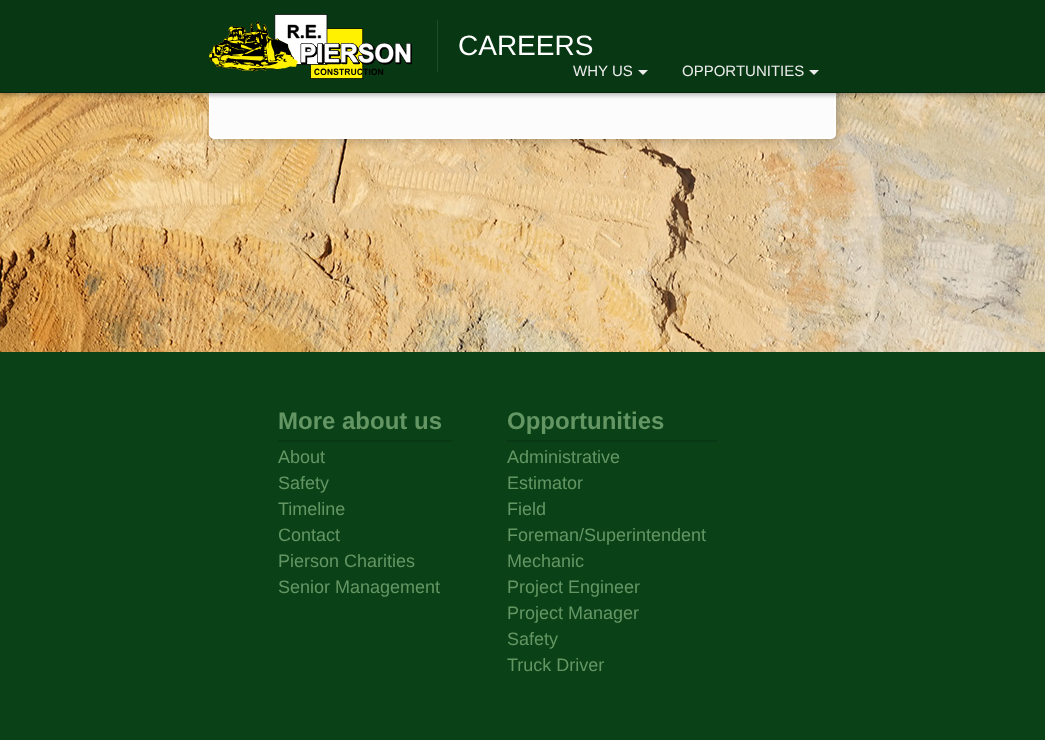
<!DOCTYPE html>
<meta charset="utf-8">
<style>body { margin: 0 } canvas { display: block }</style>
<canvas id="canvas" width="1045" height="740"></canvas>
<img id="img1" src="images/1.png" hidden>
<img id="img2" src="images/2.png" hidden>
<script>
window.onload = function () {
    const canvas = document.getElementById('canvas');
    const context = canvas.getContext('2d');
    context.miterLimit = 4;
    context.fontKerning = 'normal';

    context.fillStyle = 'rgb(255, 255, 255)';
    context.fillRect(0, 0, 1045, 740);
    context.drawImage(document.getElementById('img1'), 0, 93, 1045, 259);
    context.fillStyle = 'rgba(0, 0, 0, 0.2)';
    context.filter = 'blur(5px)';
    context.beginPath();
    context.roundRect(211, -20, 627, 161, 5);
    context.fill();
    context.filter = 'none';
    context.fillStyle = 'rgb(252, 252, 252)';
    context.beginPath();
    context.roundRect(210, -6, 625, 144, 4);
    context.fill();
    context.strokeStyle = 'rgb(255, 255, 255)';
    context.lineWidth = 2;
    context.stroke();
    context.fillStyle = 'rgba(0, 0, 0, 0.3)';
    context.filter = 'blur(2.5px)';
    context.beginPath();
    context.rect(0, 2, 1045, 93);
    context.fill();
    context.filter = 'none';
    context.fillStyle = 'rgb(8, 56, 19)';
    context.fillRect(0, 0, 1045, 92);
    context.fillStyle = 'rgb(6, 39, 13)';
    context.fillRect(0, 92, 1045, 1);
    context.drawImage(document.getElementById('img2'), 209, 14, 203, 65);
    context.fillStyle = 'rgb(33, 76, 43)';
    context.fillRect(437, 20, 1, 52);
    context.fillStyle = 'rgb(235, 235, 235)';
    context.beginPath();
    context.moveTo(638, 70);
    context.lineTo(648, 70);
    context.lineTo(643, 75);
    context.closePath();
    context.fill();
    context.beginPath();
    context.moveTo(809, 70);
    context.lineTo(819, 70);
    context.lineTo(814, 75);
    context.closePath();
    context.fill();
    context.fillStyle = 'rgb(10, 65, 23)';
    context.fillRect(0, 352, 1045, 388);
    context.fillStyle = 'rgb(9, 57, 20)';
    context.fillRect(278, 440, 174, 2);
    context.fillRect(507, 440, 210, 2);
    context.font = '28px Liberation Sans';
    context.fillStyle = 'rgb(255, 255, 255)';
    context.fillText('CAREERS', 458, 55);
    context.font = '15px Liberation Sans';
    context.fillStyle = 'rgb(235, 235, 235)';
    context.fillText('WHY US', 573, 76);
    context.fillText('OPPORTUNITIES', 682, 76);
    context.font = 'bold 24px Liberation Sans';
    context.fillStyle = 'rgb(100, 150, 100)';
    context.fillText('More about us', 278, 429);
    context.font = '18px Liberation Sans';
    context.fillText('About', 278, 463);
    context.fillText('Safety', 278, 489);
    context.fillText('Timeline', 278, 515);
    context.fillText('Contact', 278, 541);
    context.fillText('Pierson Charities', 278, 567);
    context.fillText('Senior Management', 278, 593);
    context.font = 'bold 24px Liberation Sans';
    context.fillText('Opportunities', 507, 429);
    context.font = '18px Liberation Sans';
    context.fillText('Administrative', 507, 463);
    context.fillText('Estimator', 507, 489);
    context.fillText('Field', 507, 515);
    context.fillText('Foreman/Superintendent', 507, 541);
    context.fillText('Mechanic', 507, 567);
    context.fillText('Project Engineer', 507, 593);
    context.fillText('Project Manager', 507, 619);
    context.fillText('Safety', 507, 645);
    context.fillText('Truck Driver', 507, 671);
};
</script>
